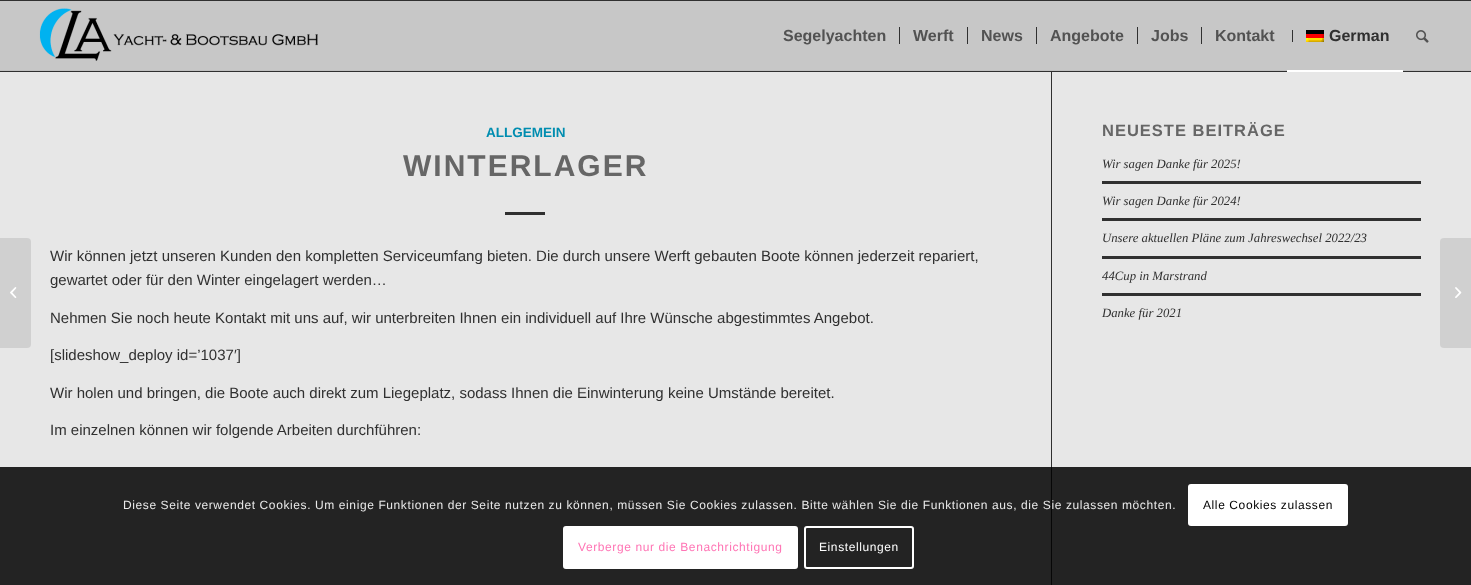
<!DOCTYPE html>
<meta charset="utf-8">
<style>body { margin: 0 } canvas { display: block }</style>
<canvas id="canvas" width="1471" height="585"></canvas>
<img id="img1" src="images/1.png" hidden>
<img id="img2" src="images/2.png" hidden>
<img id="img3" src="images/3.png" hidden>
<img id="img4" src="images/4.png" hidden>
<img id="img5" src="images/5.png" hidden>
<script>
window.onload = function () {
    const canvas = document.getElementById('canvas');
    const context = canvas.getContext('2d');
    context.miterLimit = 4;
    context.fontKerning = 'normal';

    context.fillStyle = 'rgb(199, 199, 199)';
    context.fillRect(0, 0, 1471, 585);
    context.fillStyle = 'rgb(48, 48, 48)';
    context.fillRect(0, 0, 1471, 1);
    context.fillStyle = 'rgb(231, 231, 231)';
    context.fillRect(0, 72, 1471, 513);
    context.fillStyle = 'rgb(48, 48, 48)';
    context.fillRect(1051, 71, 1, 514);
    context.fillRect(0, 71, 1471, 1);
    context.drawImage(document.getElementById('img1'), 39, 8, 279, 53);
    context.fillRect(899, 27, 1, 17);
    context.fillRect(967, 27, 1, 17);
    context.fillRect(1036, 27, 1, 17);
    context.fillRect(1137, 27, 1, 17);
    context.fillRect(1201, 27, 1, 17);
    context.fillRect(1292, 30, 1, 12);
    context.drawImage(document.getElementById('img2'), 1306, 30, 18, 12);
    context.fillStyle = 'rgb(191, 191, 191)';
    context.fillRect(0, 70, 1471, 1);
    context.fillStyle = 'rgb(255, 255, 255)';
    context.fillRect(1287, 70, 116, 2);
    context.drawImage(document.getElementById('img3'), 1416, 30, 13, 13);
    context.fillStyle = 'rgb(208, 208, 208)';
    context.beginPath();
    context.roundRect(0, 238, 31, 110, [0, 4, 4, 0]);
    context.fill();
    context.drawImage(document.getElementById('img4'), 10, 287, 7, 11);
    context.fillStyle = 'rgb(48, 48, 48)';
    context.fillRect(505, 212, 40, 3);
    context.fillRect(1102, 181, 319, 3);
    context.fillRect(1102, 218, 319, 3);
    context.fillRect(1102, 256, 319, 3);
    context.fillRect(1102, 293, 319, 3);
    context.fillStyle = 'rgb(208, 208, 208)';
    context.beginPath();
    context.roundRect(1440, 238, 31, 110, [4, 0, 0, 4]);
    context.fill();
    context.drawImage(document.getElementById('img5'), 1455, 287, 7, 11);
    context.fillStyle = 'rgba(0, 0, 0, 0.85)';
    context.fillRect(0, 467, 1471, 118);
    context.fillStyle = 'rgb(255, 255, 255)';
    context.beginPath();
    context.roundRect(1188, 484, 160, 42, 3);
    context.fill();
    context.beginPath();
    context.roundRect(564, 527, 233, 41, 2);
    context.fill();
    context.strokeStyle = 'rgb(255, 255, 255)';
    context.lineWidth = 2;
    context.stroke();
    context.beginPath();
    context.roundRect(805, 527, 108, 41, 2);
    context.stroke();
    context.font = 'bold 16px Liberation Sans';
    context.fillStyle = 'rgb(82, 82, 82)';
    context.fillText('Segelyachten', 783, 41);
    context.fillText('Werft', 913, 41);
    context.fillText('News', 981, 41);
    context.fillText('Angebote', 1050, 41);
    context.fillText('Jobs', 1151, 41);
    context.fillText('Kontakt', 1215, 41);
    context.fillStyle = 'rgb(48, 48, 48)';
    context.fillText('German', 1329, 41);
    context.font = 'bold 13.5px Liberation Sans';
    context.fillStyle = 'rgb(0, 141, 176)';
    context.fillText('ALLGEMEIN', 486, 137);
    context.letterSpacing = '2px';
    context.font = 'bold 30px Liberation Sans';
    context.fillStyle = 'rgb(102, 102, 102)';
    context.fillText('WINTERLAGER', 403, 176);
    context.letterSpacing = '0px';
    context.font = '15px Liberation Sans';
    context.fillStyle = 'rgb(48, 48, 48)';
    context.fillText('Wir können jetzt unseren Kunden den kompletten Serviceumfang bieten. Die durch unsere Werft gebauten Boote können jederzeit repariert,', 50, 261);
    context.fillText('gewartet oder für den Winter eingelagert werden…', 50, 285);
    context.fillText('Nehmen Sie noch heute Kontakt mit uns auf, wir unterbreiten Ihnen ein individuell auf Ihre Wünsche abgestimmtes Angebot.', 50, 323);
    context.fillText('[slideshow_deploy id=’1037′]', 50, 360);
    context.fillText('Wir holen und bringen, die Boote auch direkt zum Liegeplatz, sodass Ihnen die Einwinterung keine Umstände bereitet.', 50, 398);
    context.fillText('Im einzelnen können wir folgende Arbeiten durchführen:', 50, 435);
    context.letterSpacing = '1px';
    context.font = 'bold 16.5px Liberation Sans';
    context.fillStyle = 'rgb(102, 102, 102)';
    context.fillText('NEUESTE BEITRÄGE', 1102, 136);
    context.letterSpacing = '0px';
    context.font = 'italic 12.75px Liberation Serif';
    context.fillStyle = 'rgb(48, 48, 48)';
    context.fillText('Wir sagen Danke für 2025!', 1102, 168);
    context.fillText('Wir sagen Danke für 2024!', 1102, 205);
    context.fillText('Unsere aktuellen Pläne zum Jahreswechsel 2022/23', 1102, 242);
    context.fillText('44Cup in Marstrand', 1102, 280);
    context.fillText('Danke für 2021', 1102, 317);
    context.letterSpacing = '0.6px';
    context.font = '12px Liberation Sans';
    context.fillStyle = 'rgb(233, 233, 233)';
    context.fillText('Diese Seite verwendet Cookies. Um einige Funktionen der Seite nutzen zu können, müssen Sie Cookies zulassen. Bitte wählen Sie die Funktionen aus, die Sie zulassen möchten.', 123, 509);
    context.fillStyle = 'rgb(0, 0, 0)';
    context.fillText('Alle Cookies zulassen', 1203, 509);
    context.fillStyle = 'rgb(255, 117, 181)';
    context.fillText('Verberge nur die Benachrichtigung', 578, 551);
    context.fillStyle = 'rgb(255, 255, 255)';
    context.fillText('Einstellungen', 819, 551);
};
</script>
